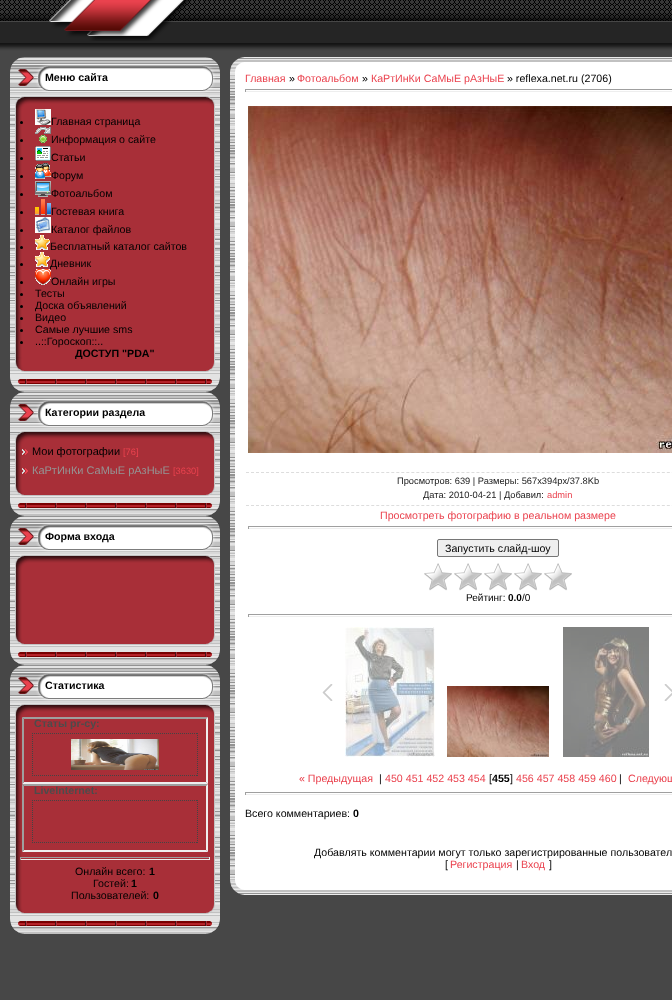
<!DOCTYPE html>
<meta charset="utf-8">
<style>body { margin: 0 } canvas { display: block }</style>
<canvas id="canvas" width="672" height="1000"></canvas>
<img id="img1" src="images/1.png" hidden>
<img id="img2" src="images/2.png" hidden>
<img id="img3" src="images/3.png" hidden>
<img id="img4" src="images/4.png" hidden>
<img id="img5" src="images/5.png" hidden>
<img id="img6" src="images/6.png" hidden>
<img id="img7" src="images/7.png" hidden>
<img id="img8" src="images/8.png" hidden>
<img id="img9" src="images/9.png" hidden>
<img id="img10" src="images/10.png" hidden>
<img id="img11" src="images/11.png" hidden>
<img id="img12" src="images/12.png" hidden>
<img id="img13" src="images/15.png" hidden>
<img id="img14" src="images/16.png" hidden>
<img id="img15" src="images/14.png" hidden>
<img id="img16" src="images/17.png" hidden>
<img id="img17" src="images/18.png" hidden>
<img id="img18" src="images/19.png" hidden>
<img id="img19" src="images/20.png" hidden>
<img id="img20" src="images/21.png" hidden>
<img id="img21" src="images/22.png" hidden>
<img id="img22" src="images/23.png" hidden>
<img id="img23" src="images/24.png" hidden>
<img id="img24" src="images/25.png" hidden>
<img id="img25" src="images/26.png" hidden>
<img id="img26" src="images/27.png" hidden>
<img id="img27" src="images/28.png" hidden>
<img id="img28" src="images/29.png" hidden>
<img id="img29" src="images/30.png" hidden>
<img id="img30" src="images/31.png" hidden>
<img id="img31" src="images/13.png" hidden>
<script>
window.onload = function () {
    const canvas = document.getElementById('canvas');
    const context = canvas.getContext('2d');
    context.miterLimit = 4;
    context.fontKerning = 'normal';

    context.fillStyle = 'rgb(71, 71, 71)';
    context.fillRect(0, 0, 672, 1000);
    context.drawImage(document.getElementById('img1'), 0, 0, 672, 57);
    context.drawImage(document.getElementById('img2'), 49, 0, 143, 41);
    context.drawImage(document.getElementById('img3'), 10, 57, 210, 52);
    context.drawImage(document.getElementById('img4'), 10, 109, 210, 250);
    context.fillStyle = 'rgb(0, 0, 0)';
    context.beginPath();
    context.arc(21.5, 122.5, 1.5, 0, 2 * Math.PI);
    context.fill();
    context.drawImage(document.getElementById('img5'), 35, 109, 16, 16);
    context.beginPath();
    context.arc(21.5, 140.5, 1.5, 0, 2 * Math.PI);
    context.fill();
    context.drawImage(document.getElementById('img6'), 35, 127, 16, 16);
    context.beginPath();
    context.arc(21.5, 158.5, 1.5, 0, 2 * Math.PI);
    context.fill();
    context.drawImage(document.getElementById('img7'), 35, 146, 16, 15);
    context.beginPath();
    context.arc(21.5, 176.5, 1.5, 0, 2 * Math.PI);
    context.fill();
    context.drawImage(document.getElementById('img8'), 35, 163, 16, 16);
    context.beginPath();
    context.arc(21.5, 194.5, 1.5, 0, 2 * Math.PI);
    context.fill();
    context.drawImage(document.getElementById('img9'), 35, 181, 16, 16);
    context.beginPath();
    context.arc(21.5, 212.5, 1.5, 0, 2 * Math.PI);
    context.fill();
    context.drawImage(document.getElementById('img10'), 35, 199, 16, 16);
    context.beginPath();
    context.arc(21.5, 230.5, 1.5, 0, 2 * Math.PI);
    context.fill();
    context.drawImage(document.getElementById('img11'), 35, 217, 16, 16);
    context.beginPath();
    context.arc(21.5, 247.5, 1.5, 0, 2 * Math.PI);
    context.fill();
    context.drawImage(document.getElementById('img12'), 35, 235, 15, 15);
    context.beginPath();
    context.arc(21.5, 264.5, 1.5, 0, 2 * Math.PI);
    context.fill();
    context.drawImage(document.getElementById('img12'), 35, 252, 15, 15);
    context.beginPath();
    context.arc(21.5, 282.5, 1.5, 0, 2 * Math.PI);
    context.fill();
    context.beginPath();
    context.arc(21.5, 294.5, 1.5, 0, 2 * Math.PI);
    context.fill();
    context.beginPath();
    context.arc(21.5, 306.5, 1.5, 0, 2 * Math.PI);
    context.fill();
    context.beginPath();
    context.arc(21.5, 318.5, 1.5, 0, 2 * Math.PI);
    context.fill();
    context.beginPath();
    context.arc(21.5, 330.5, 1.5, 0, 2 * Math.PI);
    context.fill();
    context.beginPath();
    context.arc(21.5, 342.5, 1.5, 0, 2 * Math.PI);
    context.fill();
    context.drawImage(document.getElementById('img3'), 10, 392, 210, 52);
    context.drawImage(document.getElementById('img13'), 10, 444, 210, 39);
    context.drawImage(document.getElementById('img14'), 22, 449, 6, 6);
    context.drawImage(document.getElementById('img14'), 22, 468, 6, 6);
    context.drawImage(document.getElementById('img15'), 10, 483, 210, 33);
    context.drawImage(document.getElementById('img3'), 10, 516, 210, 52);
    context.drawImage(document.getElementById('img16'), 10, 568, 210, 64);
    context.drawImage(document.getElementById('img15'), 10, 632, 210, 33);
    context.drawImage(document.getElementById('img3'), 10, 665, 210, 52);
    context.drawImage(document.getElementById('img17'), 10, 717, 210, 184);
    context.fillStyle = 'rgb(159, 159, 159)';
    context.beginPath();
    context.moveTo(22, 717);
    context.lineTo(208, 717);
    context.lineTo(206, 719);
    context.lineTo(24, 719);
    context.closePath();
    context.fill();
    context.fillStyle = 'rgb(239, 239, 239)';
    context.beginPath();
    context.moveTo(208, 717);
    context.lineTo(208, 784);
    context.lineTo(206, 782);
    context.lineTo(206, 719);
    context.closePath();
    context.fill();
    context.beginPath();
    context.moveTo(208, 784);
    context.lineTo(22, 784);
    context.lineTo(24, 782);
    context.lineTo(206, 782);
    context.closePath();
    context.fill();
    context.fillStyle = 'rgb(159, 159, 159)';
    context.beginPath();
    context.moveTo(22, 784);
    context.lineTo(22, 717);
    context.lineTo(24, 719);
    context.lineTo(24, 782);
    context.closePath();
    context.fill();
    context.beginPath();
    context.moveTo(32, 733.5);
    context.lineTo(198, 733.5);
    context.strokeStyle = 'rgb(68, 68, 68)';
    context.setLineDash([1, 1]);
    context.stroke();
    context.beginPath();
    context.moveTo(197.5, 733);
    context.lineTo(197.5, 776);
    context.stroke();
    context.beginPath();
    context.moveTo(32, 775.5);
    context.lineTo(198, 775.5);
    context.stroke();
    context.beginPath();
    context.moveTo(32.5, 733);
    context.lineTo(32.5, 776);
    context.stroke();
    context.drawImage(document.getElementById('img18'), 71, 739, 88, 31);
    context.beginPath();
    context.moveTo(22, 784);
    context.lineTo(208, 784);
    context.lineTo(206, 786);
    context.lineTo(24, 786);
    context.closePath();
    context.fill();
    context.fillStyle = 'rgb(239, 239, 239)';
    context.beginPath();
    context.moveTo(208, 784);
    context.lineTo(208, 852);
    context.lineTo(206, 850);
    context.lineTo(206, 786);
    context.closePath();
    context.fill();
    context.beginPath();
    context.moveTo(208, 852);
    context.lineTo(22, 852);
    context.lineTo(24, 850);
    context.lineTo(206, 850);
    context.closePath();
    context.fill();
    context.fillStyle = 'rgb(159, 159, 159)';
    context.beginPath();
    context.moveTo(22, 852);
    context.lineTo(22, 784);
    context.lineTo(24, 786);
    context.lineTo(24, 850);
    context.closePath();
    context.fill();
    context.beginPath();
    context.moveTo(32, 800.5);
    context.lineTo(198, 800.5);
    context.stroke();
    context.beginPath();
    context.moveTo(197.5, 800);
    context.lineTo(197.5, 843);
    context.stroke();
    context.beginPath();
    context.moveTo(32, 842.5);
    context.lineTo(198, 842.5);
    context.stroke();
    context.beginPath();
    context.moveTo(32.5, 800);
    context.lineTo(32.5, 843);
    context.stroke();
    context.fillRect(20, 857, 190, 1);
    context.fillStyle = 'rgb(238, 238, 238)';
    context.fillRect(209, 857, 1, 3);
    context.fillRect(20, 859, 190, 1);
    context.fillStyle = 'rgb(159, 159, 159)';
    context.fillRect(20, 857, 1, 3);
    context.drawImage(document.getElementById('img15'), 10, 901, 210, 33);
    context.drawImage(document.getElementById('img19'), 230, 57, 15, 15);
    context.drawImage(document.getElementById('img20'), 245, 57, 427, 15);
    context.drawImage(document.getElementById('img21'), 230, 72, 15, 808);
    context.fillStyle = 'rgb(255, 255, 255)';
    context.fillRect(245, 72, 427, 808);
    context.fillStyle = 'rgb(159, 159, 159)';
    context.fillRect(245, 89, 427, 1);
    context.fillStyle = 'rgb(238, 238, 238)';
    context.fillRect(245, 91, 427, 1);
    context.fillStyle = 'rgb(159, 159, 159)';
    context.fillRect(245, 89, 1, 3);
    context.drawImage(document.getElementById('img22'), 248, 106, 424, 347);
    context.beginPath();
    context.moveTo(246, 472.5);
    context.lineTo(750, 472.5);
    context.strokeStyle = 'rgb(221, 221, 221)';
    context.setLineDash([3, 2.01]);
    context.stroke();
    context.beginPath();
    context.moveTo(246, 505.5);
    context.lineTo(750, 505.5);
    context.stroke();
    context.fillRect(248, 526, 424, 1);
    context.fillStyle = 'rgb(238, 238, 238)';
    context.fillRect(248, 528, 424, 1);
    context.fillStyle = 'rgb(159, 159, 159)';
    context.fillRect(248, 526, 1, 3);
    context.fillStyle = 'rgb(239, 239, 239)';
    context.beginPath();
    context.roundRect(437.5, 539.5, 121, 17, 1.5);
    context.fill();
    context.strokeStyle = 'rgb(118, 118, 118)';
    context.setLineDash([]);
    context.stroke();
    context.drawImage(document.getElementById('img23'), 424, 563, 148, 28);
    context.fillStyle = 'rgb(159, 159, 159)';
    context.fillRect(248, 614, 424, 1);
    context.fillStyle = 'rgb(238, 238, 238)';
    context.fillRect(248, 616, 424, 1);
    context.fillStyle = 'rgb(159, 159, 159)';
    context.fillRect(248, 614, 1, 3);
    context.drawImage(document.getElementById('img24'), 322, 684, 11, 17);
    context.drawImage(document.getElementById('img25'), 345, 627, 90, 130);
    context.drawImage(document.getElementById('img26'), 447, 686, 102, 71);
    context.drawImage(document.getElementById('img27'), 563, 627, 86, 130);
    context.drawImage(document.getElementById('img28'), 664, 684, 8, 17);
    context.fillRect(245, 792, 427, 1);
    context.fillStyle = 'rgb(238, 238, 238)';
    context.fillRect(245, 794, 427, 1);
    context.fillStyle = 'rgb(159, 159, 159)';
    context.fillRect(245, 792, 1, 3);
    context.drawImage(document.getElementById('img29'), 230, 880, 15, 15);
    context.drawImage(document.getElementById('img30'), 245, 880, 427, 15);
    context.font = 'bold 10.65px Liberation Sans';
    context.fillStyle = 'rgb(0, 0, 0)';
    context.fillText('Меню сайта', 45, 81);
    context.font = '10.65px Liberation Sans';
    context.fillText('Главная страница', 51, 125);
    context.fillText('Информация о сайте', 51, 143);
    context.fillText('Статьи', 51, 161);
    context.fillText('Форум', 51, 179);
    context.fillText('Фотоальбом', 51, 197);
    context.fillText('Гостевая книга', 51, 215);
    context.fillText('Каталог файлов', 51, 233);
    context.fillText('Бесплатный каталог сайтов', 50, 250);
    context.fillText('Дневник', 50, 267);
    context.drawImage(document.getElementById('img31'), 35, 269, 16, 16);
    context.fillText('Онлайн игры', 51, 285);
    context.fillText('Тесты', 35, 297);
    context.fillText('Доска объявлений', 35, 309);
    context.fillText('Видео', 35, 321);
    context.fillText('Самые лучшие sms', 35, 333);
    context.fillText('..::Гороскоп::..', 35, 345);
    context.font = 'bold 10.65px Liberation Sans';
    context.fillText('ДОСТУП "PDA"', 75, 357);
    context.drawImage(document.getElementById('img15'), 10, 359, 210, 33);
    context.fillText('Категории раздела', 45, 416);
    context.font = '11px Liberation Sans';
    context.fillText('Мои фотографии', 32, 455);
    context.font = '9.3px Liberation Sans';
    context.fillStyle = 'rgb(234, 66, 78)';
    context.fillText('[76]', 123, 455);
    context.font = '11px Liberation Sans';
    context.fillStyle = 'rgb(149, 149, 149)';
    context.fillText('КаРтИнКи СаМыЕ рАзНыЕ', 32, 474);
    context.font = '9.3px Liberation Sans';
    context.fillStyle = 'rgb(234, 66, 78)';
    context.fillText('[3630]', 173, 474);
    context.font = 'bold 10.65px Liberation Sans';
    context.fillStyle = 'rgb(0, 0, 0)';
    context.fillText('Форма входа', 45, 540);
    context.fillText('Статистика', 45, 689);
    context.fillStyle = 'rgb(76, 76, 76)';
    context.fillText('Статы pr-cy:', 34, 727);
    context.fillText('LiveInternet:', 34, 794);
    context.font = '10.65px Liberation Sans';
    context.fillStyle = 'rgb(0, 0, 0)';
    context.fillText('Онлайн всего:', 75, 875);
    context.font = 'bold 10.65px Liberation Sans';
    context.fillText('1', 149, 875);
    context.font = '10.65px Liberation Sans';
    context.fillText('Гостей:', 93, 887);
    context.font = 'bold 10.65px Liberation Sans';
    context.fillText('1', 131, 887);
    context.font = '10.65px Liberation Sans';
    context.fillText('Пользователей:', 71, 899);
    context.font = 'bold 10.65px Liberation Sans';
    context.fillText('0', 153, 899);
    context.font = '10.65px Liberation Sans';
    context.fillStyle = 'rgb(234, 66, 78)';
    context.fillText('Главная', 245, 82);
    context.fillStyle = 'rgb(0, 0, 0)';
    context.fillText('»', 289, 82);
    context.fillStyle = 'rgb(234, 66, 78)';
    context.fillText('Фотоальбом', 297, 82);
    context.fillStyle = 'rgb(0, 0, 0)';
    context.fillText('»', 362, 82);
    context.fillStyle = 'rgb(234, 66, 78)';
    context.fillText('КаРтИнКи СаМыЕ рАзНыЕ', 371, 82);
    context.fillStyle = 'rgb(0, 0, 0)';
    context.fillText('» reflexa.net.ru (2706)', 507, 82);
    context.font = '9.3px Liberation Sans';
    context.fillStyle = 'rgb(26, 26, 26)';
    context.fillText('Просмотров: 639 | Размеры: 567x394px/37.8Kb', 397, 484);
    context.fillText('Дата: 2010-04-21 | Добавил:', 423, 498);
    context.fillStyle = 'rgb(234, 66, 78)';
    context.fillText('admin', 547, 498);
    context.font = '10.65px Liberation Sans';
    context.fillText('Просмотреть фотографию в реальном размере', 380, 519);
    context.fillStyle = 'rgb(0, 0, 0)';
    context.fillText('Запустить слайд-шоу', 445, 552);
    context.font = '10px Liberation Sans';
    context.fillText('Рейтинг:', 466, 601);
    context.font = 'bold 10px Liberation Sans';
    context.fillText('0.0', 508, 601);
    context.font = '10px Liberation Sans';
    context.fillText('/0', 522, 601);
    context.font = '10.65px Liberation Sans';
    context.fillStyle = 'rgb(234, 66, 78)';
    context.fillText('« Предыдущая', 299, 782);
    context.fillStyle = 'rgb(0, 0, 0)';
    context.fillText('|', 379, 782);
    context.fillStyle = 'rgb(234, 66, 78)';
    context.fillText('450 451 452 453 454', 385, 782);
    context.fillStyle = 'rgb(0, 0, 0)';
    context.fillText('[', 489, 782);
    context.font = 'bold 10.65px Liberation Sans';
    context.fillText('455', 492, 782);
    context.font = '10.65px Liberation Sans';
    context.fillText(']', 510, 782);
    context.fillStyle = 'rgb(234, 66, 78)';
    context.fillText('456 457 458 459 460', 516, 782);
    context.fillStyle = 'rgb(0, 0, 0)';
    context.fillText('|', 619, 782);
    context.fillStyle = 'rgb(234, 66, 78)';
    context.fillText('Следующ', 628, 782);
    context.fillStyle = 'rgb(0, 0, 0)';
    context.fillText('Всего комментариев:', 245, 817);
    context.font = 'bold 10.65px Liberation Sans';
    context.fillText('0', 353, 817);
    context.font = '10.65px Liberation Sans';
    context.fillText('Добавлять комментарии могут только зарегистрированные пользовател', 314, 856);
    context.fillText('[', 445, 868);
    context.fillStyle = 'rgb(234, 66, 78)';
    context.fillText('Регистрация', 450, 868);
    context.fillStyle = 'rgb(0, 0, 0)';
    context.fillText('|', 516, 868);
    context.fillStyle = 'rgb(234, 66, 78)';
    context.fillText('Вход', 521, 868);
    context.fillStyle = 'rgb(0, 0, 0)';
    context.fillText(']', 549, 868);
};
</script>
